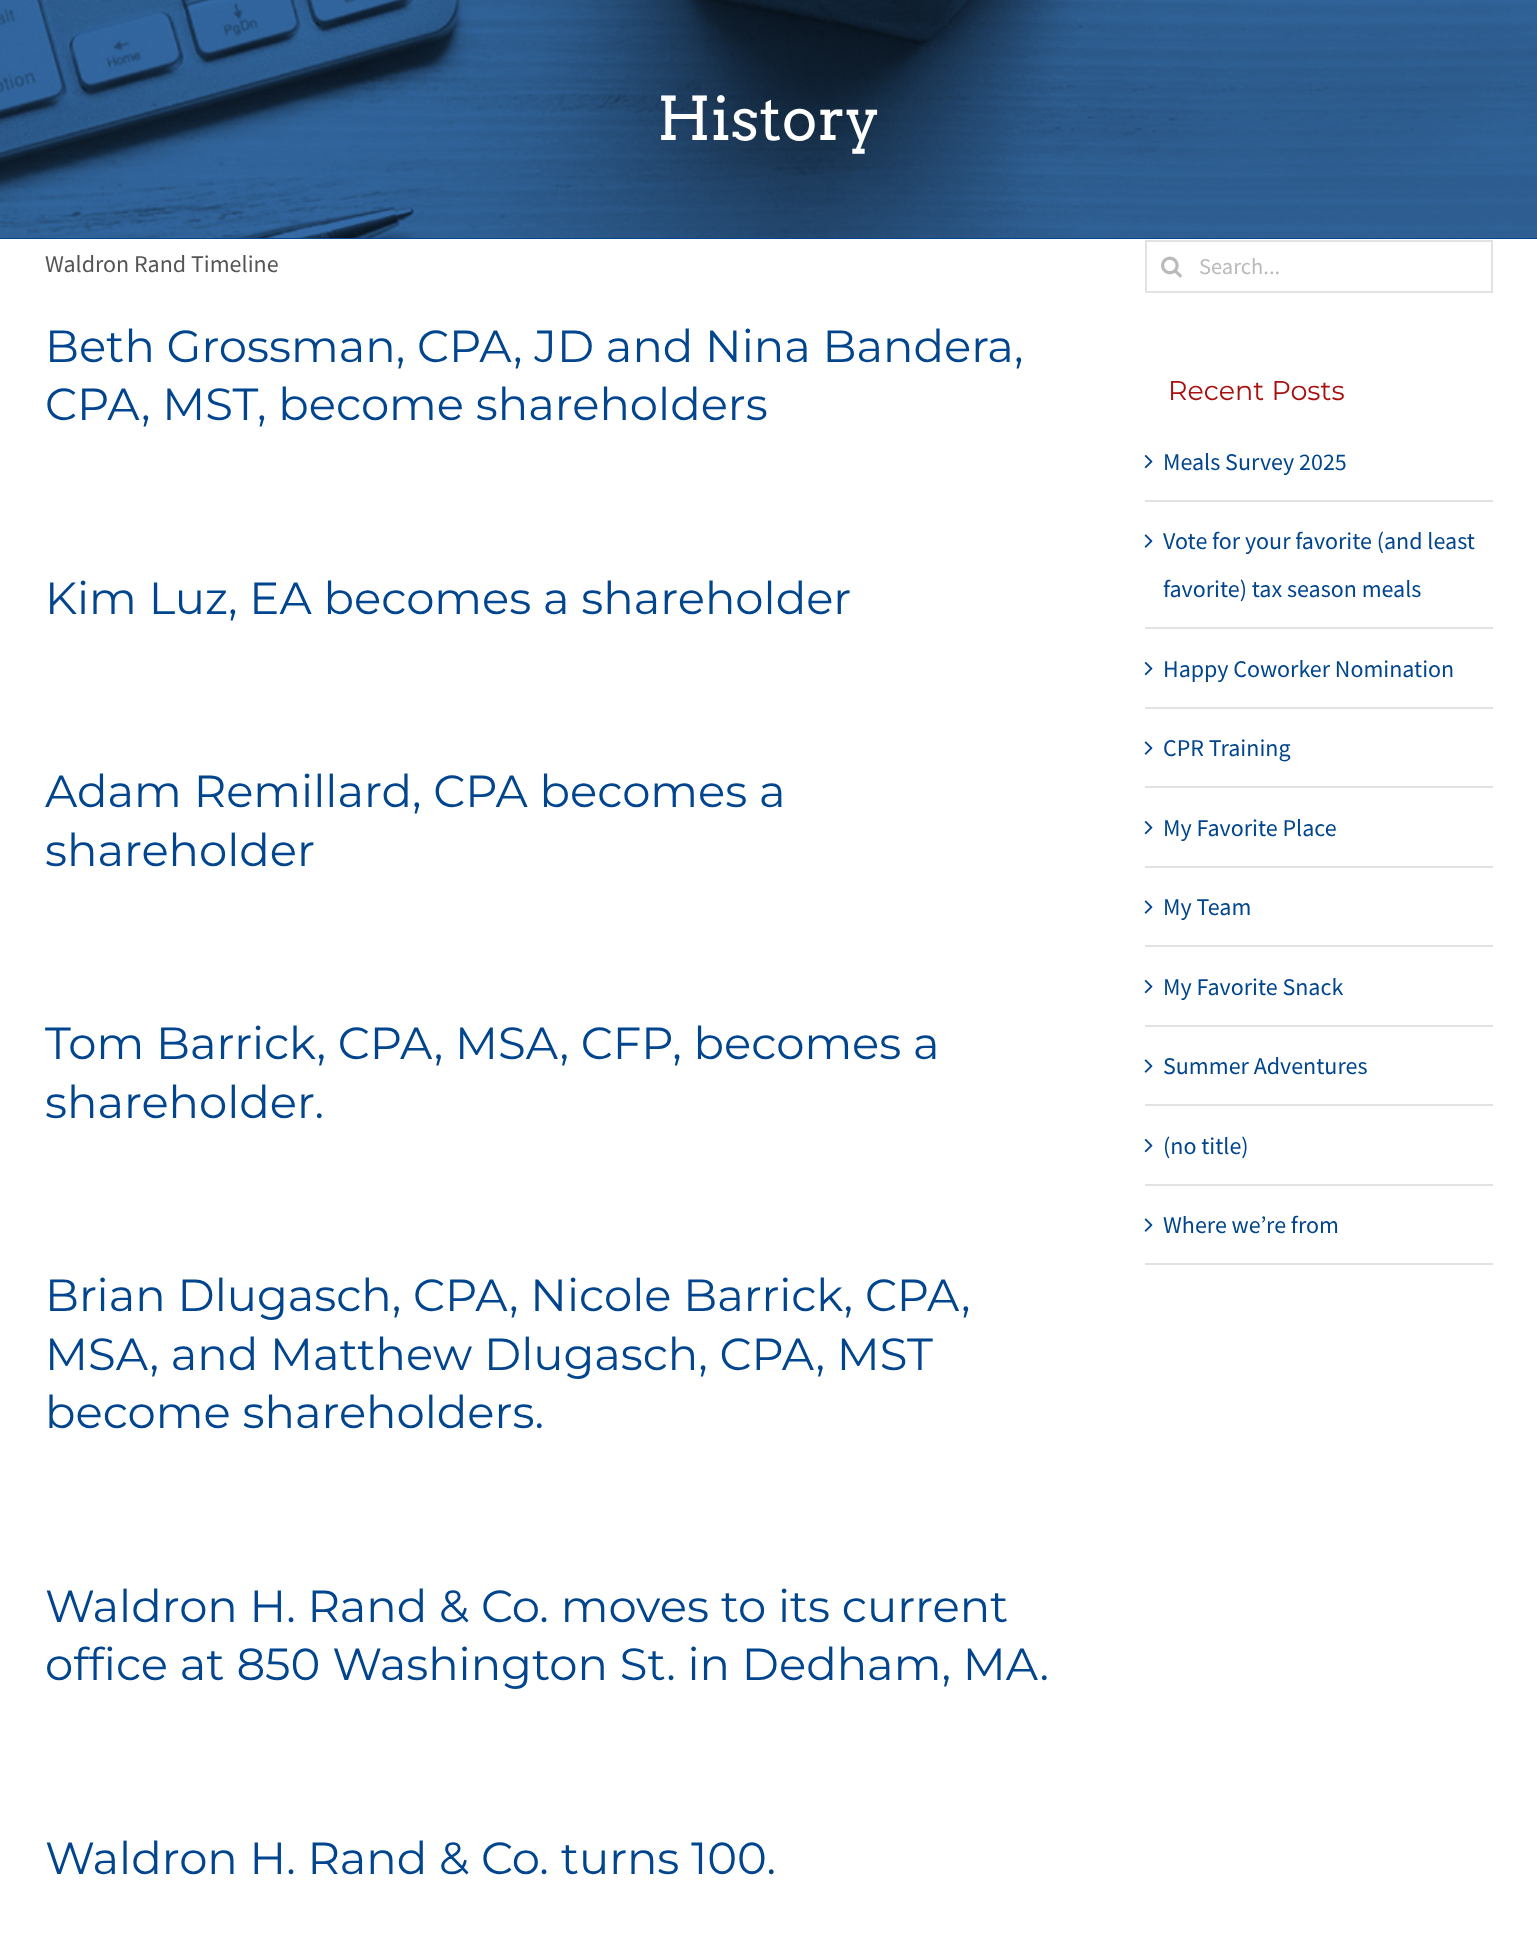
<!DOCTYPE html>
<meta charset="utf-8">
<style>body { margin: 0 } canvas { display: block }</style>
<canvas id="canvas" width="1537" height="1958"></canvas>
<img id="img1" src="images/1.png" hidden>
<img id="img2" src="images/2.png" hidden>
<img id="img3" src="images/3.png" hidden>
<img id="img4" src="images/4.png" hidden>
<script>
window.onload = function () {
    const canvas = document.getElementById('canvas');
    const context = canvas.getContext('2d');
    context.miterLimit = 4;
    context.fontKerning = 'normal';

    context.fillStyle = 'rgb(255, 255, 255)';
    context.fillRect(0, 0, 1537, 1958);
    context.fillStyle = 'rgb(1, 69, 142)';
    context.fillRect(0, 238, 1537, 1);
    context.drawImage(document.getElementById('img1'), 0, 0, 1537, 238);
    context.strokeStyle = 'rgb(226, 226, 226)';
    context.lineWidth = 2;
    context.strokeRect(1146, 241, 346, 51);
    context.drawImage(document.getElementById('img2'), 1161, 256, 21, 22);
    context.fillStyle = 'rgb(226, 226, 226)';
    context.fillRect(1145, 500, 348, 2);
    context.drawImage(document.getElementById('img3'), 1144, 454, 9, 15);
    context.fillRect(1145, 627, 348, 2);
    context.drawImage(document.getElementById('img4'), 1144, 534, 9, 14);
    context.fillRect(1145, 707, 348, 2);
    context.drawImage(document.getElementById('img3'), 1144, 661, 9, 15);
    context.fillRect(1145, 786, 348, 2);
    context.drawImage(document.getElementById('img4'), 1144, 741, 9, 14);
    context.fillRect(1145, 866, 348, 2);
    context.drawImage(document.getElementById('img3'), 1144, 820, 9, 15);
    context.fillRect(1145, 945, 348, 2);
    context.drawImage(document.getElementById('img4'), 1144, 900, 9, 14);
    context.fillRect(1145, 1025, 348, 2);
    context.drawImage(document.getElementById('img3'), 1144, 979, 9, 15);
    context.fillRect(1145, 1104, 348, 2);
    context.drawImage(document.getElementById('img4'), 1144, 1059, 9, 14);
    context.fillRect(1145, 1184, 348, 2);
    context.drawImage(document.getElementById('img3'), 1144, 1138, 9, 15);
    context.fillRect(1145, 1263, 348, 2);
    context.drawImage(document.getElementById('img4'), 1144, 1218, 9, 14);
    context.font = '60px Arvo';
    context.fillStyle = 'rgb(255, 255, 255)';
    context.fillText('History', 657, 140);
    context.font = '24px Source Sans Pro';
    context.fillStyle = 'rgb(85, 85, 85)';
    context.fillText('Waldron Rand Timeline', 45, 272);
    context.font = '45px Montserrat';
    context.fillStyle = 'rgb(1, 69, 142)';
    context.fillText('Beth Grossman, CPA, JD and Nina Bandera,', 45, 362);
    context.fillText('CPA, MST, become shareholders', 45, 420);
    context.fillText('Kim Luz, EA becomes a shareholder', 45, 614);
    context.fillText('Adam Remillard, CPA becomes a', 45, 807);
    context.fillText('shareholder', 45, 866);
    context.fillText('Tom Barrick, CPA, MSA, CFP, becomes a', 45, 1059);
    context.fillText('shareholder.', 45, 1118);
    context.fillText('Brian Dlugasch, CPA, Nicole Barrick, CPA,', 45, 1311);
    context.fillText('MSA, and Matthew Dlugasch, CPA, MST', 45, 1370);
    context.fillText('become shareholders.', 45, 1428);
    context.fillText('Waldron H. Rand & Co. moves to its current', 45, 1622);
    context.fillText('office at 850 Washington St. in Dedham, MA.', 45, 1680);
    context.fillText('Waldron H. Rand & Co. turns 100.', 45, 1874);
    context.font = '22.5px Source Sans Pro';
    context.fillStyle = 'rgb(186, 186, 186)';
    context.fillText('Search...', 1199, 274);
    context.font = '27px Montserrat';
    context.fillStyle = 'rgb(168, 16, 16)';
    context.fillText('Recent Posts', 1168, 400);
    context.font = '24px Source Sans Pro';
    context.fillStyle = 'rgb(1, 69, 142)';
    context.fillText('Meals Survey 2025', 1163, 470);
    context.fillText('Vote for your favorite (and least', 1163, 549);
    context.fillText('favorite) tax season meals', 1163, 597);
    context.fillText('Happy Coworker Nomination', 1163, 677);
    context.fillText('CPR Training', 1163, 756);
    context.fillText('My Favorite Place', 1163, 836);
    context.fillText('My Team', 1163, 915);
    context.fillText('My Favorite Snack', 1163, 995);
    context.fillText('Summer Adventures', 1163, 1074);
    context.fillText('(no title)', 1163, 1154);
    context.fillText('Where we’re from', 1163, 1233);
};
</script>
